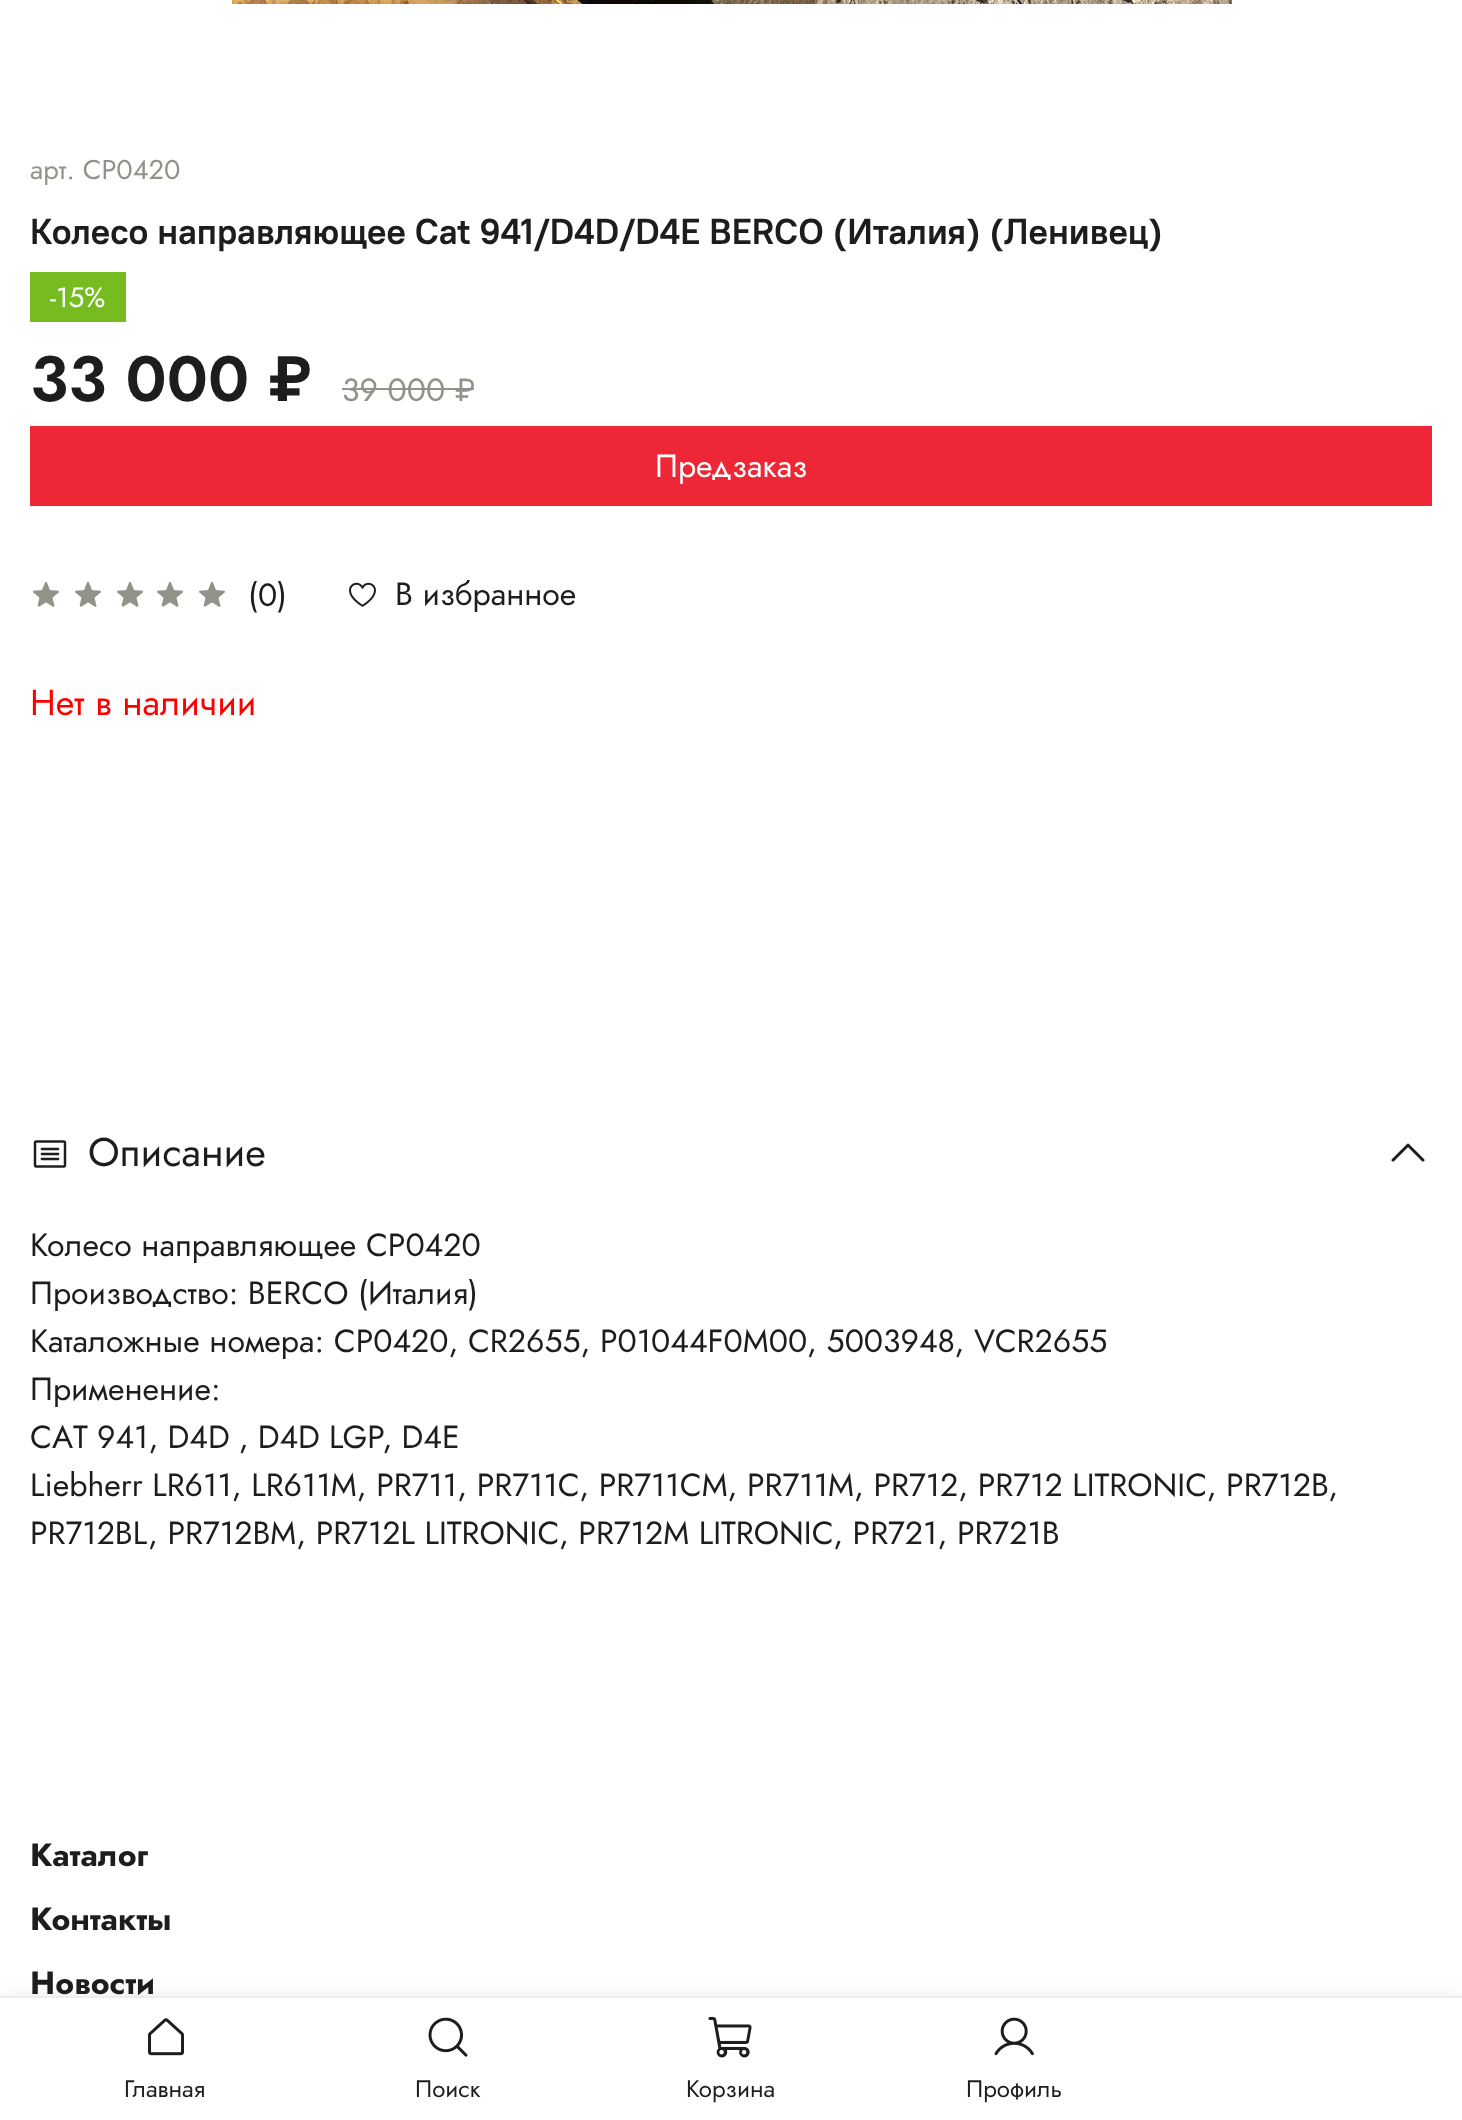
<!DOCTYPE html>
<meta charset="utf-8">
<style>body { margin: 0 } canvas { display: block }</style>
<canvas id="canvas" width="1462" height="2120"></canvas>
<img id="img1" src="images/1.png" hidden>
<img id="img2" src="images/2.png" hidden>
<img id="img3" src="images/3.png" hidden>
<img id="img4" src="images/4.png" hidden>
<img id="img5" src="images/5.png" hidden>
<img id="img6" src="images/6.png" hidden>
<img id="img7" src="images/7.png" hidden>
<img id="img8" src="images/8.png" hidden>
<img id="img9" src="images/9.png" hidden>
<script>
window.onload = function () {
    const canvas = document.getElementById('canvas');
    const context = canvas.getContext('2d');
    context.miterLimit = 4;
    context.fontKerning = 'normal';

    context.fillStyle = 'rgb(255, 255, 255)';
    context.fillRect(0, 0, 1462, 2120);
    context.drawImage(document.getElementById('img1'), 232, 0, 1000, 4);
    context.fillStyle = 'rgb(118, 188, 33)';
    context.fillRect(30, 272, 96, 50);
    context.fillStyle = 'rgb(146, 146, 137)';
    context.fillRect(342, 388, 132, 2);
    context.fillStyle = 'rgb(238, 39, 55)';
    context.fillRect(30, 426, 1402, 80);
    context.drawImage(document.getElementById('img2'), 33, 581, 26, 26);
    context.drawImage(document.getElementById('img2'), 75, 581, 26, 26);
    context.drawImage(document.getElementById('img2'), 117, 581, 26, 26);
    context.drawImage(document.getElementById('img2'), 157, 581, 26, 26);
    context.drawImage(document.getElementById('img2'), 199, 581, 26, 26);
    context.drawImage(document.getElementById('img3'), 349, 582, 27, 25);
    context.drawImage(document.getElementById('img4'), 33, 1140, 34, 28);
    context.drawImage(document.getElementById('img5'), 1391, 1143, 34, 19);
    context.fillStyle = 'rgba(0, 0, 0, 0.12)';
    context.filter = 'blur(10px)';
    context.beginPath();
    context.rect(0, 2000, 1462, 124);
    context.fill();
    context.filter = 'none';
    context.fillStyle = 'rgb(255, 255, 255)';
    context.fillRect(0, 1998, 1462, 122);
    context.fillStyle = 'rgb(237, 237, 237)';
    context.fillRect(0, 1996, 1462, 2);
    context.drawImage(document.getElementById('img6'), 148, 2018, 36, 38);
    context.drawImage(document.getElementById('img7'), 428, 2017, 40, 40);
    context.drawImage(document.getElementById('img8'), 708, 2016, 44, 42);
    context.drawImage(document.getElementById('img9'), 994, 2017, 40, 39);
    context.font = '27.25px Jost';
    context.fillStyle = 'rgb(146, 146, 137)';
    context.fillText('арт. CP0420', 30, 179);
    context.font = 'bold 36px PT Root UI';
    context.fillStyle = 'rgb(29, 29, 27)';
    context.fillText('Колесо направляющее Cat 941/D4D/D4E BERCO (Италия) (Ленивец)', 30, 244);
    context.font = '28px Jost';
    context.fillStyle = 'rgb(255, 255, 255)';
    context.fillText('-15%', 50, 307);
    context.font = '600 64px Jost';
    context.fillStyle = 'rgb(29, 29, 27)';
    context.fillText('33 000 ₽', 30, 401);
    context.font = '32px Jost';
    context.fillStyle = 'rgb(146, 146, 137)';
    context.fillText('39 000 ₽', 342, 401);
    context.fillStyle = 'rgb(255, 255, 255)';
    context.fillText('Предзаказ', 655, 477);
    context.fillStyle = 'rgb(29, 29, 27)';
    context.fillText('(0)', 248, 606);
    context.fillText('В избранное', 395, 605);
    context.font = '36px Jost';
    context.fillStyle = 'rgb(255, 0, 0)';
    context.fillText('Нет в наличии', 30, 715);
    context.font = '40px Jost';
    context.fillStyle = 'rgb(29, 29, 27)';
    context.fillText('Описание', 88, 1166);
    context.font = '32px Jost';
    context.fillText('Колесо направляющее CP0420', 30, 1256);
    context.fillText('Производство: BERCO (Италия)', 30, 1304);
    context.fillText('Каталожные номера: CP0420, CR2655, P01044F0M00, 5003948, VCR2655', 30, 1352);
    context.fillText('Применение:', 30, 1400);
    context.wordSpacing = '-0.5px';
    context.fillText('CAT 941, D4D , D4D LGP, D4E', 30, 1448);
    context.wordSpacing = '0px';
    context.fillText('Liebherr LR611, LR611M, PR711, PR711C, PR711CM, PR711M, PR712, PR712 LITRONIC, PR712B,', 30, 1496);
    context.fillText('PR712BL, PR712BM, PR712L LITRONIC, PR712M LITRONIC, PR721, PR721B', 30, 1544);
    context.font = 'bold 32px Jost';
    context.fillText('Каталог', 30, 1866);
    context.fillText('Контакты', 30, 1930);
    context.fillText('Новости', 30, 1994);
    context.font = '24px Jost';
    context.fillText('Главная', 124, 2097);
    context.fillText('Поиск', 415, 2097);
    context.fillText('Корзина', 686, 2097);
    context.fillText('Профиль', 966, 2097);
};
</script>
